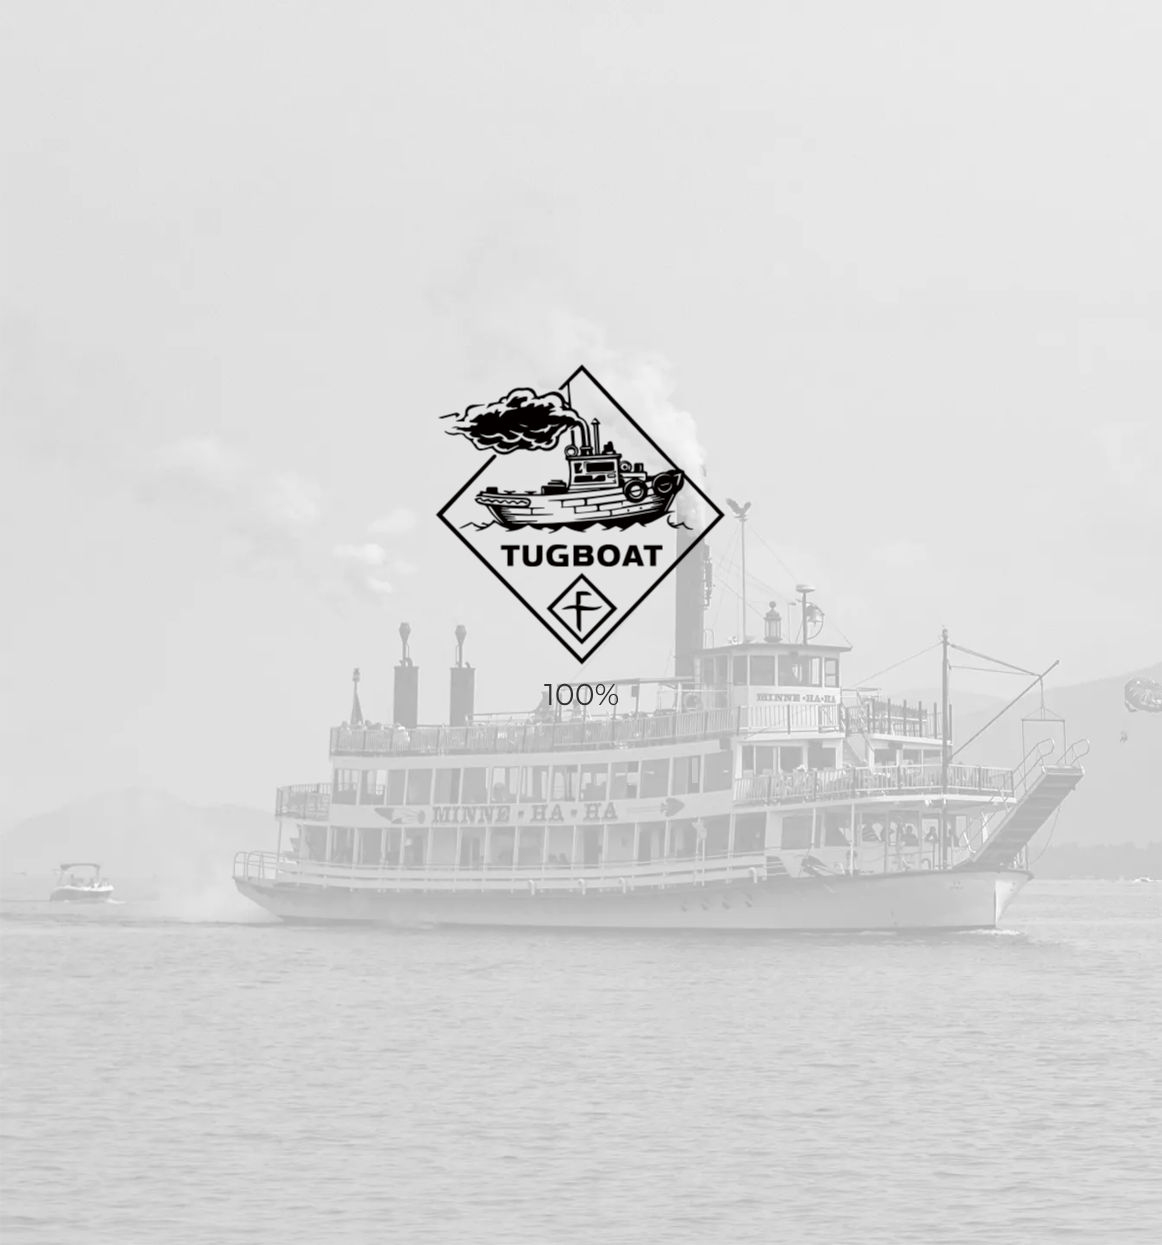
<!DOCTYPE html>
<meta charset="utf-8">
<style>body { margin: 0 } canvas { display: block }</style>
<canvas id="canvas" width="1162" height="1245"></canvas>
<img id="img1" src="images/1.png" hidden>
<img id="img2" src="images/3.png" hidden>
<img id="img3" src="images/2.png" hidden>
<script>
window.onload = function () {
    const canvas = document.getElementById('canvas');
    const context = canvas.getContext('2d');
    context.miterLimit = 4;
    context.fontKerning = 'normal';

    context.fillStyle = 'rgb(255, 255, 255)';
    context.fillRect(0, 0, 1162, 1245);
    context.fillStyle = 'rgba(0, 0, 0, 0.2)';
    context.filter = 'blur(4px)';
    context.beginPath();
    context.rect(0, 0, 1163, 135);
    context.fill();
    context.filter = 'none';
    context.drawImage(document.getElementById('img1'), 0, 0, 1162, 1245);
    context.drawImage(document.getElementById('img2'), 436, 364, 289, 301);
    context.drawImage(document.getElementById('img3'), 435, 364, 291, 301);
    context.font = '30px Montserrat';
    context.fillStyle = 'rgb(51, 51, 51)';
    context.fillText('100%', 544, 705);
    context.font = 'bold 36px Montserrat';
    context.fillStyle = 'rgb(201, 201, 201)';
    context.fillText('I', 689, 783);
};
</script>
